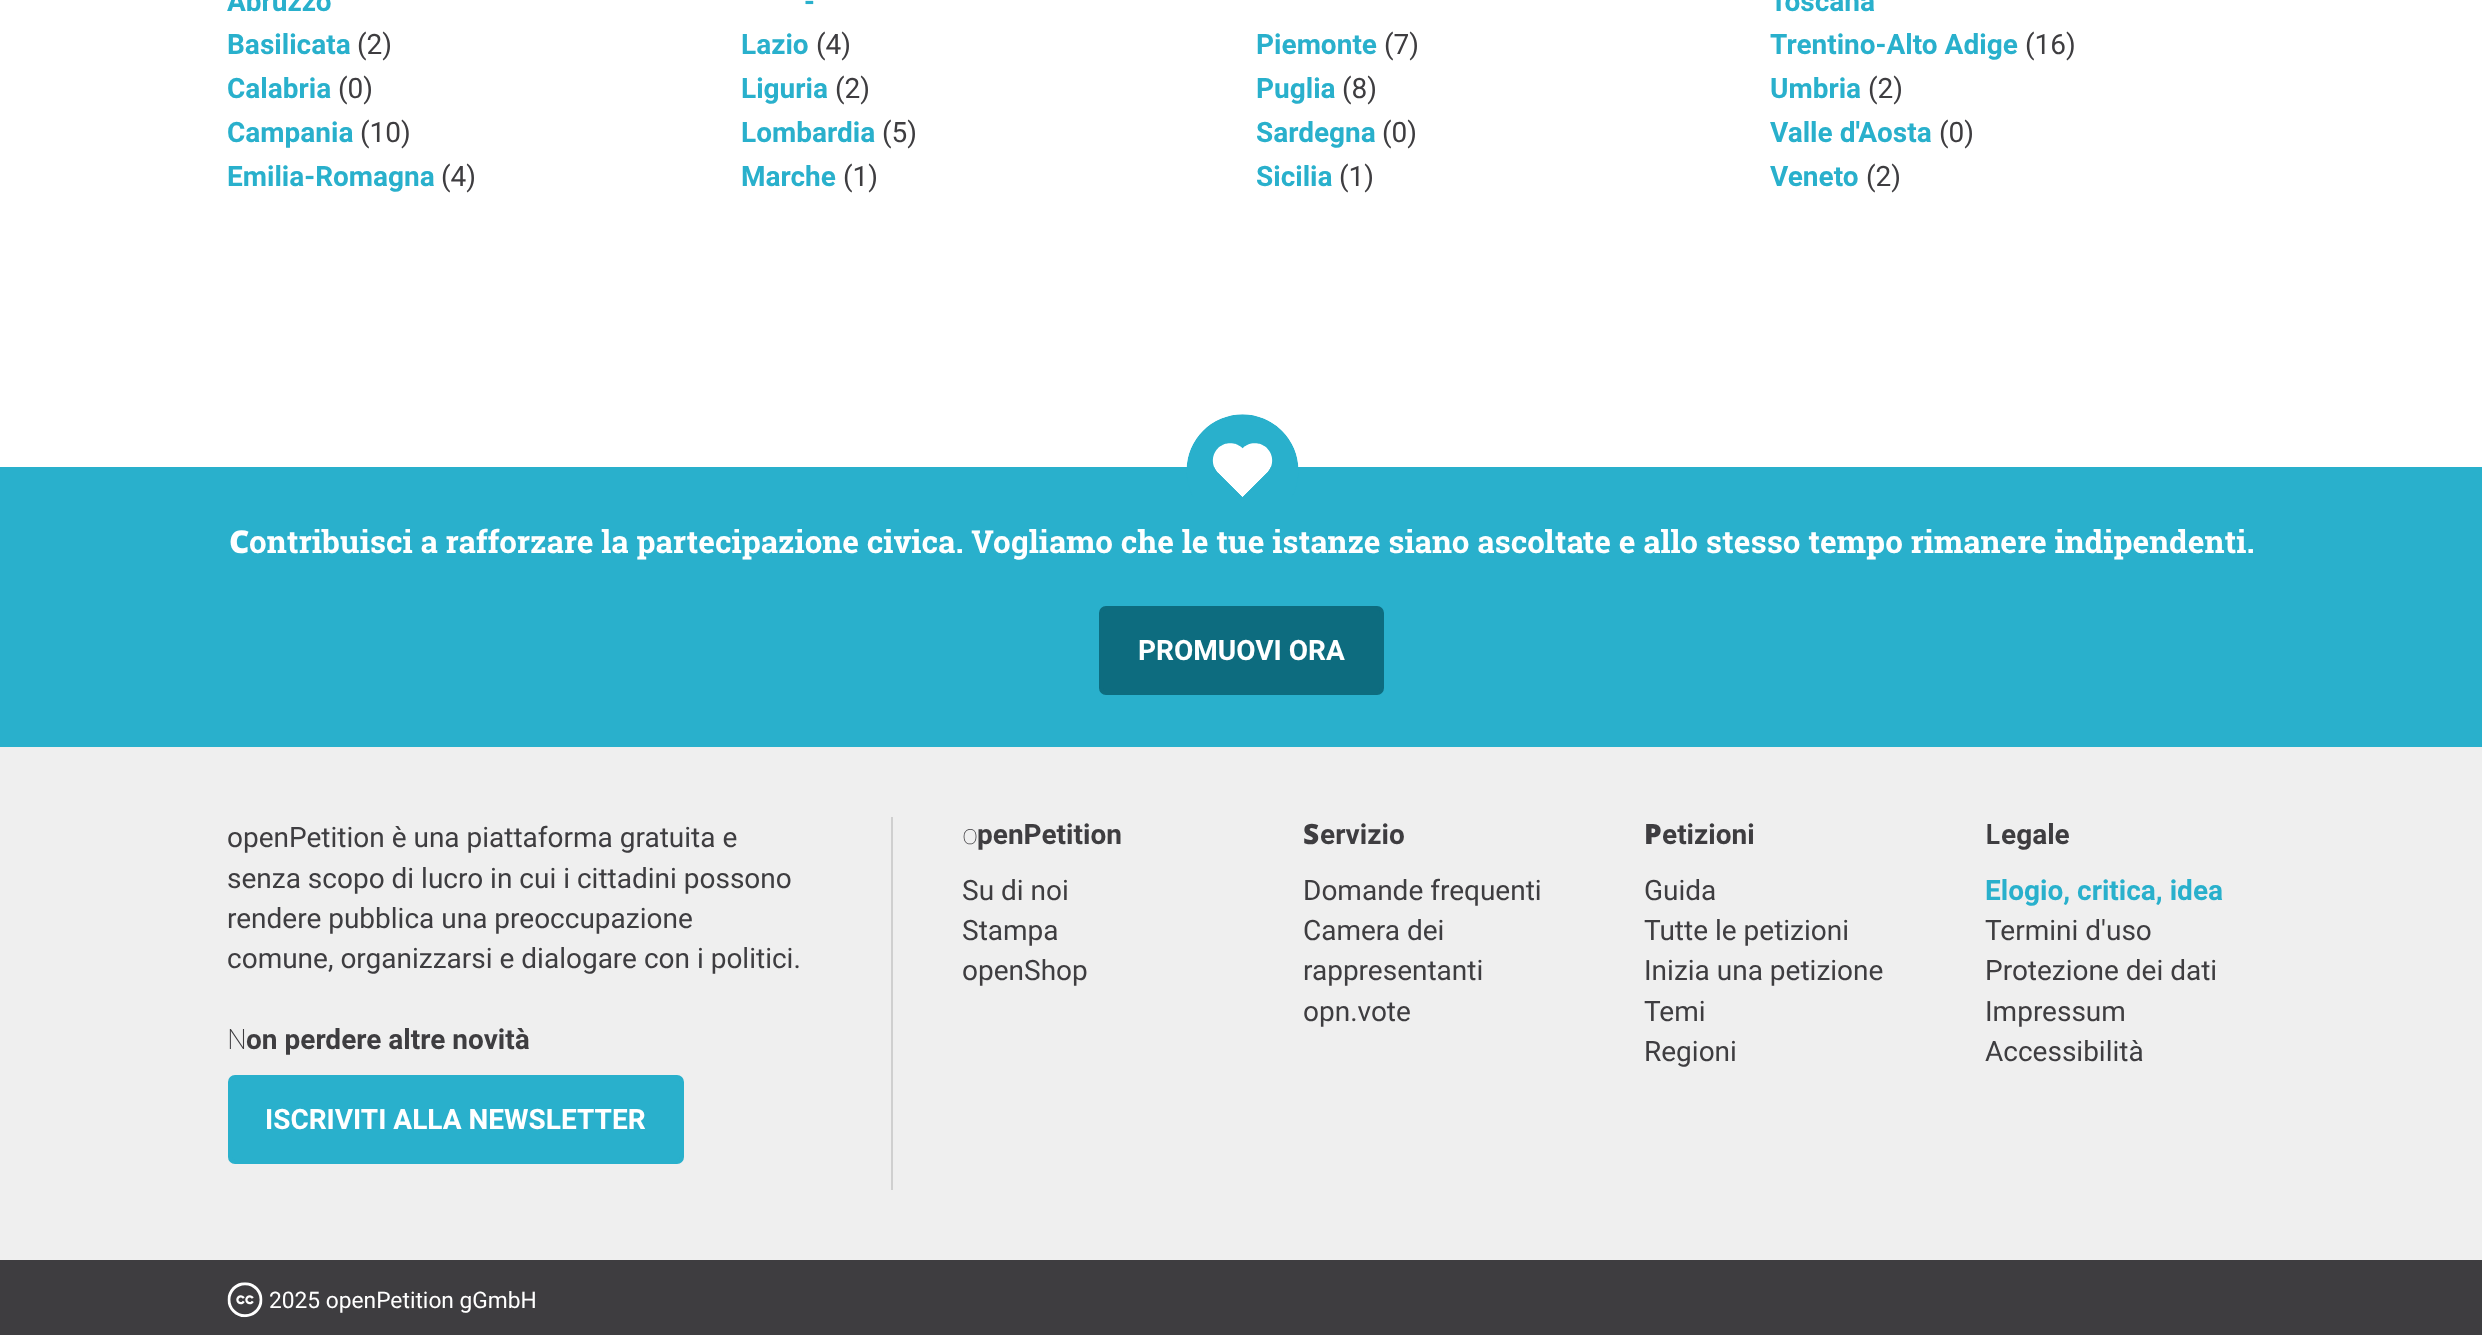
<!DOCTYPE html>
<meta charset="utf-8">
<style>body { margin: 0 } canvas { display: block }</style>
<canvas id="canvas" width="2482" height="1335"></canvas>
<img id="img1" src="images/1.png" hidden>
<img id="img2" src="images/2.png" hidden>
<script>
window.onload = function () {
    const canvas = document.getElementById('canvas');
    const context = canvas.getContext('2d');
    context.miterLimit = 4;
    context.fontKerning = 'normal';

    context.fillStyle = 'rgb(255, 255, 255)';
    context.fillRect(0, 0, 2482, 1335);
    context.fillStyle = 'rgb(41, 176, 204)';
    context.fillRect(0, 467, 2482, 280);
    context.drawImage(document.getElementById('img1'), 1186, 414, 113, 83);
    context.fillStyle = 'rgb(13, 108, 127)';
    context.beginPath();
    context.roundRect(1101, 608, 281, 85, 5);
    context.fill();
    context.strokeStyle = 'rgb(13, 108, 127)';
    context.lineWidth = 4;
    context.stroke();
    context.fillStyle = 'rgb(239, 239, 239)';
    context.fillRect(0, 747, 2482, 513);
    context.fillStyle = 'rgb(207, 207, 207)';
    context.fillRect(891, 817, 2, 373);
    context.fillStyle = 'rgb(41, 176, 204)';
    context.beginPath();
    context.roundRect(230, 1077, 452, 85, 5);
    context.fill();
    context.strokeStyle = 'rgb(41, 176, 204)';
    context.stroke();
    context.fillStyle = 'rgb(62, 61, 64)';
    context.fillRect(0, 1260, 2482, 75);
    context.drawImage(document.getElementById('img2'), 227, 1282, 36, 36);
    context.font = 'bold 28px Roboto';
    context.fillStyle = 'rgb(41, 176, 204)';
    context.fillText('Abruzzo', 227, 11);
    context.fillText('-', 804, 11);
    context.fillText('Toscana', 1770, 11);
    context.fillText('Basilicata', 227, 54);
    context.font = '28px Roboto';
    context.fillStyle = 'rgb(62, 61, 64)';
    context.fillText('(2)', 357, 54);
    context.font = 'bold 28px Roboto';
    context.fillStyle = 'rgb(41, 176, 204)';
    context.fillText('Lazio', 741, 54);
    context.font = '28px Roboto';
    context.fillStyle = 'rgb(62, 61, 64)';
    context.fillText('(4)', 816, 54);
    context.font = 'bold 28px Roboto';
    context.fillStyle = 'rgb(41, 176, 204)';
    context.fillText('Piemonte', 1256, 54);
    context.font = '28px Roboto';
    context.fillStyle = 'rgb(62, 61, 64)';
    context.fillText('(7)', 1384, 54);
    context.font = 'bold 28px Roboto';
    context.fillStyle = 'rgb(41, 176, 204)';
    context.fillText('Trentino-Alto Adige', 1770, 54);
    context.font = '28px Roboto';
    context.fillStyle = 'rgb(62, 61, 64)';
    context.fillText('(16)', 2025, 54);
    context.font = 'bold 28px Roboto';
    context.fillStyle = 'rgb(41, 176, 204)';
    context.fillText('Calabria', 227, 98);
    context.font = '28px Roboto';
    context.fillStyle = 'rgb(62, 61, 64)';
    context.fillText('(0)', 338, 98);
    context.font = 'bold 28px Roboto';
    context.fillStyle = 'rgb(41, 176, 204)';
    context.fillText('Liguria', 741, 98);
    context.font = '28px Roboto';
    context.fillStyle = 'rgb(62, 61, 64)';
    context.fillText('(2)', 835, 98);
    context.font = 'bold 28px Roboto';
    context.fillStyle = 'rgb(41, 176, 204)';
    context.fillText('Puglia', 1256, 98);
    context.font = '28px Roboto';
    context.fillStyle = 'rgb(62, 61, 64)';
    context.fillText('(8)', 1342, 98);
    context.font = 'bold 28px Roboto';
    context.fillStyle = 'rgb(41, 176, 204)';
    context.fillText('Umbria', 1770, 98);
    context.font = '28px Roboto';
    context.fillStyle = 'rgb(62, 61, 64)';
    context.fillText('(2)', 1868, 98);
    context.font = 'bold 28px Roboto';
    context.fillStyle = 'rgb(41, 176, 204)';
    context.fillText('Campania', 227, 142);
    context.font = '28px Roboto';
    context.fillStyle = 'rgb(62, 61, 64)';
    context.fillText('(10)', 360, 142);
    context.font = 'bold 28px Roboto';
    context.fillStyle = 'rgb(41, 176, 204)';
    context.fillText('Lombardia', 741, 142);
    context.font = '28px Roboto';
    context.fillStyle = 'rgb(62, 61, 64)';
    context.fillText('(5)', 882, 142);
    context.font = 'bold 28px Roboto';
    context.fillStyle = 'rgb(41, 176, 204)';
    context.fillText('Sardegna', 1256, 142);
    context.font = '28px Roboto';
    context.fillStyle = 'rgb(62, 61, 64)';
    context.fillText('(0)', 1382, 142);
    context.font = 'bold 28px Roboto';
    context.fillStyle = 'rgb(41, 176, 204)';
    context.fillText('Valle d\'Aosta', 1770, 142);
    context.font = '28px Roboto';
    context.fillStyle = 'rgb(62, 61, 64)';
    context.fillText('(0)', 1939, 142);
    context.font = 'bold 28px Roboto';
    context.fillStyle = 'rgb(41, 176, 204)';
    context.fillText('Emilia-Romagna', 227, 186);
    context.font = '28px Roboto';
    context.fillStyle = 'rgb(62, 61, 64)';
    context.fillText('(4)', 441, 186);
    context.font = 'bold 28px Roboto';
    context.fillStyle = 'rgb(41, 176, 204)';
    context.fillText('Marche', 741, 186);
    context.font = '28px Roboto';
    context.fillStyle = 'rgb(62, 61, 64)';
    context.fillText('(1)', 843, 186);
    context.font = 'bold 28px Roboto';
    context.fillStyle = 'rgb(41, 176, 204)';
    context.fillText('Sicilia', 1256, 186);
    context.font = '28px Roboto';
    context.fillStyle = 'rgb(62, 61, 64)';
    context.fillText('(1)', 1339, 186);
    context.font = 'bold 28px Roboto';
    context.fillStyle = 'rgb(41, 176, 204)';
    context.fillText('Veneto', 1770, 186);
    context.font = '28px Roboto';
    context.fillStyle = 'rgb(62, 61, 64)';
    context.fillText('(2)', 1866, 186);
    context.font = '900 31.5px Noto Sans';
    context.fillStyle = 'rgb(255, 255, 255)';
    context.fillText('C', 229, 553);
    context.font = 'bold 31.5px Roboto Slab';
    context.fillText('ontribuisci a rafforzare la partecipazione civica. Vogliamo che le tue istanze siano ascoltate e allo stesso tempo rimanere indipendenti.', 249, 553);
    context.font = 'bold 28px Roboto';
    context.fillText('PROMUOVI ORA', 1138, 660);
    context.font = '28px Roboto';
    context.fillStyle = 'rgb(62, 61, 64)';
    context.fillText('openPetition è una piattaforma gratuita e', 227, 847);
    context.fillText('senza scopo di lucro in cui i cittadini possono', 227, 888);
    context.fillText('rendere pubblica una preoccupazione', 227, 928);
    context.fillText('comune, organizzarsi e dialogare con i politici.', 227, 968);
    context.font = '200 28px Noto Sans';
    context.fillText('N', 227, 1049);
    context.font = 'bold 28px Roboto';
    context.fillText('on perdere altre novità', 246, 1049);
    context.fillStyle = 'rgb(255, 255, 255)';
    context.fillText('ISCRIVITI ALLA NEWSLETTER', 265, 1129);
    context.font = '100 28px Noto Sans';
    context.fillStyle = 'rgb(62, 61, 64)';
    context.fillText('o', 962, 844);
    context.font = 'bold 28px Roboto';
    context.fillText('penPetition', 977, 844);
    context.font = '28px Roboto';
    context.fillText('Su di noi', 962, 900);
    context.fillText('Stampa', 962, 940);
    context.fillText('openShop', 962, 980);
    context.font = '900 28px Noto Sans';
    context.fillText('S', 1303, 844);
    context.font = 'bold 28px Roboto';
    context.fillText('ervizio', 1320, 844);
    context.font = '28px Roboto';
    context.fillText('Domande frequenti', 1303, 900);
    context.fillText('Camera dei', 1303, 940);
    context.fillText('rappresentanti', 1303, 980);
    context.fillText('opn.vote', 1303, 1021);
    context.font = '900 28px Noto Sans';
    context.fillText('P', 1644, 844);
    context.font = 'bold 28px Roboto';
    context.fillText('etizioni', 1662, 844);
    context.font = '28px Roboto';
    context.fillText('Guida', 1644, 900);
    context.fillText('Tutte le petizioni', 1644, 940);
    context.fillText('Inizia una petizione', 1644, 980);
    context.fillText('Temi', 1644, 1021);
    context.fillText('Regioni', 1644, 1061);
    context.font = '600 28px Noto Sans';
    context.fillText('L', 1985, 844);
    context.font = 'bold 28px Roboto';
    context.fillText('egale', 2001, 844);
    context.fillStyle = 'rgb(41, 176, 204)';
    context.fillText('Elogio, critica, idea', 1985, 900);
    context.font = '28px Roboto';
    context.fillStyle = 'rgb(62, 61, 64)';
    context.fillText('Termini d\'uso', 1985, 940);
    context.fillText('Protezione dei dati', 1985, 980);
    context.fillText('Impressum', 1985, 1021);
    context.fillText('Accessibilità', 1985, 1061);
    context.font = '22.75px Roboto';
    context.fillStyle = 'rgb(255, 255, 255)';
    context.fillText('2025 openPetition gGmbH', 269, 1308);
};
</script>
